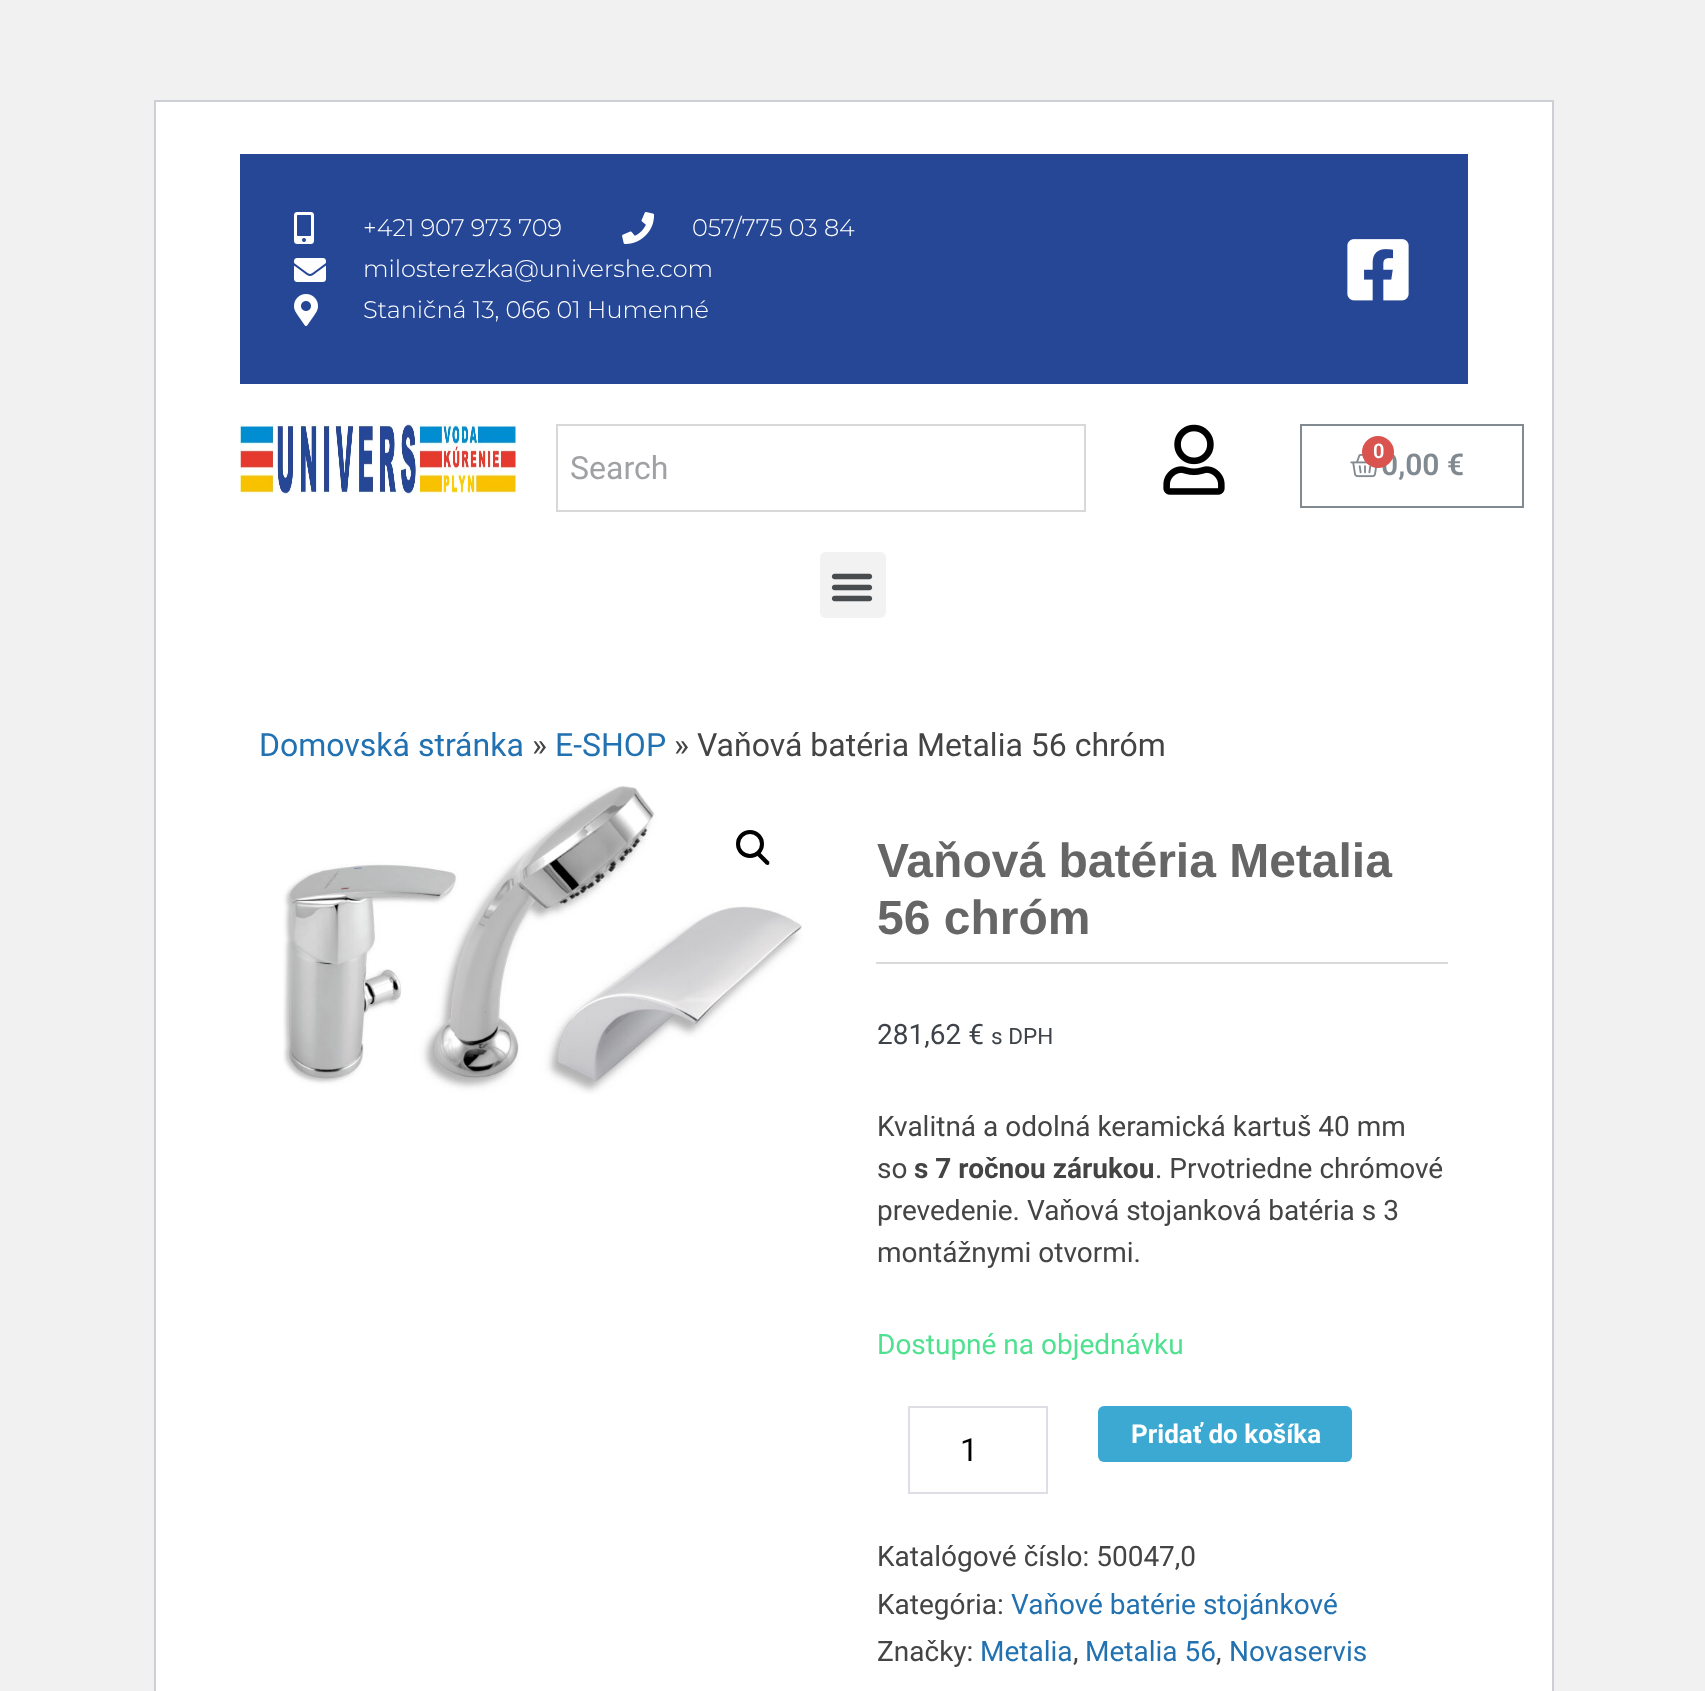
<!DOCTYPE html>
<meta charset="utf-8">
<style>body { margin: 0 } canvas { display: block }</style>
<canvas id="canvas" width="1705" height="1691"></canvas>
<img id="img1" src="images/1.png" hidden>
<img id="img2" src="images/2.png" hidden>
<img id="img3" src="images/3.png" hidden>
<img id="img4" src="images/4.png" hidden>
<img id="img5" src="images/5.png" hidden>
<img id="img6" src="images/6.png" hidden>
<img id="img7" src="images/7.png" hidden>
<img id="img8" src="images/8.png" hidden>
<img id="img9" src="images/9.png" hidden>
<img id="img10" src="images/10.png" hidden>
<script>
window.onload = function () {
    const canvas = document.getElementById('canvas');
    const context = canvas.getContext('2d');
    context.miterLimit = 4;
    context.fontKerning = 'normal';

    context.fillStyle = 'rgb(241, 241, 241)';
    context.fillRect(0, 0, 1705, 1691);
    context.fillStyle = 'rgb(255, 255, 255)';
    context.beginPath();
    context.rect(155, 101, 1398, 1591);
    context.fill();
    context.strokeStyle = 'rgb(204, 208, 212)';
    context.lineWidth = 2;
    context.stroke();
    context.fillStyle = 'rgb(38, 71, 150)';
    context.fillRect(240, 154, 1228, 230);
    context.drawImage(document.getElementById('img1'), 294, 212, 20, 32);
    context.drawImage(document.getElementById('img2'), 622, 212, 33, 32);
    context.drawImage(document.getElementById('img3'), 294, 258, 32, 24);
    context.drawImage(document.getElementById('img4'), 294, 294, 24, 32);
    context.drawImage(document.getElementById('img5'), 1347, 239, 62, 62);
    context.drawImage(document.getElementById('img6'), 240, 424, 276, 70);
    context.strokeStyle = 'rgb(216, 216, 216)';
    context.strokeRect(557, 425, 528, 86);
    context.drawImage(document.getElementById('img7'), 1163, 424, 62, 71);
    context.strokeStyle = 'rgb(129, 138, 145)';
    context.strokeRect(1301, 425, 222, 82);
    context.drawImage(document.getElementById('img8'), 1350, 453, 28, 25);
    context.fillStyle = 'rgb(242, 242, 242)';
    context.beginPath();
    context.roundRect(820, 552, 66, 66, 6);
    context.fill();
    context.drawImage(document.getElementById('img9'), 831, 573, 42, 29);
    context.drawImage(document.getElementById('img10'), 283, 786, 520, 308);
    context.beginPath();
    context.arc(750, 844, 12, 0, 2 * Math.PI);
    context.strokeStyle = 'rgb(0, 0, 0)';
    context.lineWidth = 4;
    context.stroke();
    context.fillStyle = 'rgb(0, 0, 0)';
    context.beginPath();
    context.moveTo(757.5, 853);
    context.bezierCurveTo(758.5, 852.5, 759.5, 852.5, 760.5, 853);
    context.lineTo(769, 861.5);
    context.bezierCurveTo(769.5, 862.5, 769.5, 863.5, 769, 864.5);
    context.bezierCurveTo(768, 865, 767, 865, 766, 864.5);
    context.lineTo(757.5, 856);
    context.bezierCurveTo(757, 855, 757, 854, 757.5, 853);
    context.closePath();
    context.fill();
    context.fillStyle = 'rgb(218, 218, 218)';
    context.fillRect(876, 962, 572, 2);
    context.fillStyle = 'rgb(59, 169, 210)';
    context.beginPath();
    context.roundRect(1098, 1406, 254, 56, 6);
    context.fill();
    context.strokeStyle = 'rgb(222, 222, 229)';
    context.lineWidth = 2;
    context.strokeRect(909, 1407, 138, 86);
    context.font = '300 24px Montserrat';
    context.fillStyle = 'rgb(255, 255, 255)';
    context.fillText('+421 907 973 709', 363, 236);
    context.fillText('057/775 03 84', 692, 236);
    context.fillText('milosterezka@univershe.com', 363, 277);
    context.fillText('Staničná 13, 066 01 Humenné', 363, 318);
    context.font = '32px Roboto';
    context.fillStyle = 'rgb(159, 161, 164)';
    context.fillText('Search', 570, 479);
    context.font = '600 30px Roboto';
    context.fillStyle = 'rgb(129, 138, 145)';
    context.fillText('0,00 €', 1381, 475);
    context.fillStyle = 'rgb(217, 83, 79)';
    context.beginPath();
    context.arc(1378, 452, 16, 0, 2 * Math.PI);
    context.fill();
    context.font = '600 20px Roboto';
    context.fillStyle = 'rgb(255, 255, 255)';
    context.fillText('0', 1373, 458);
    context.font = '32px Roboto';
    context.fillStyle = 'rgb(34, 113, 177)';
    context.fillText('Domovská stránka', 259, 756);
    context.fillStyle = 'rgb(68, 68, 68)';
    context.fillText('»', 532, 756);
    context.fillStyle = 'rgb(34, 113, 177)';
    context.fillText('E-SHOP', 555, 756);
    context.fillStyle = 'rgb(68, 68, 68)';
    context.fillText('» Vaňová batéria Metalia 56 chróm', 674, 756);
    context.font = 'bold 48px Liberation Sans';
    context.fillStyle = 'rgb(102, 102, 102)';
    context.fillText('Vaňová batéria Metalia', 877, 877);
    context.fillText('56 chróm', 877, 934);
    context.font = '28px Roboto';
    context.fillStyle = 'rgb(62, 67, 73)';
    context.fillText('281,62 €', 877, 1044);
    context.font = '22.5px Roboto';
    context.fillText('s DPH', 991, 1044);
    context.font = '28px Roboto';
    context.fillStyle = 'rgb(68, 68, 68)';
    context.fillText('Kvalitná a odolná keramická kartuš 40 mm', 877, 1136);
    context.fillText('so', 877, 1178);
    context.font = 'bold 28px Roboto';
    context.fillText('s 7 ročnou zárukou', 914, 1178);
    context.font = '28px Roboto';
    context.fillText('. Prvotriedne chrómové', 1155, 1178);
    context.fillText('prevedenie. Vaňová stojanková batéria s 3', 877, 1220);
    context.fillText('montážnymi otvormi.', 877, 1262);
    context.fillStyle = 'rgb(79, 225, 144)';
    context.fillText('Dostupné na objednávku', 877, 1354);
    context.font = 'bold 26px Roboto';
    context.fillStyle = 'rgb(255, 255, 255)';
    context.fillText('Pridať do košíka', 1131, 1443);
    context.font = '32px Roboto';
    context.fillStyle = 'rgb(0, 0, 0)';
    context.fillText('1', 960, 1461);
    context.font = '28px Roboto';
    context.fillStyle = 'rgb(68, 68, 68)';
    context.fillText('Katalógové číslo: 50047,0', 877, 1566);
    context.fillText('Kategória:', 877, 1614);
    context.fillStyle = 'rgb(34, 113, 177)';
    context.fillText('Vaňové batérie stojánkové', 1011, 1614);
    context.fillStyle = 'rgb(68, 68, 68)';
    context.fillText('Značky:', 877, 1661);
    context.fillStyle = 'rgb(34, 113, 177)';
    context.fillText('Metalia', 980, 1661);
    context.fillStyle = 'rgb(68, 68, 68)';
    context.fillText(',', 1073, 1661);
    context.fillStyle = 'rgb(34, 113, 177)';
    context.fillText('Metalia 56', 1085, 1661);
    context.fillStyle = 'rgb(68, 68, 68)';
    context.fillText(',', 1216, 1661);
    context.fillStyle = 'rgb(34, 113, 177)';
    context.fillText('Novaservis', 1229, 1661);
};
</script>
